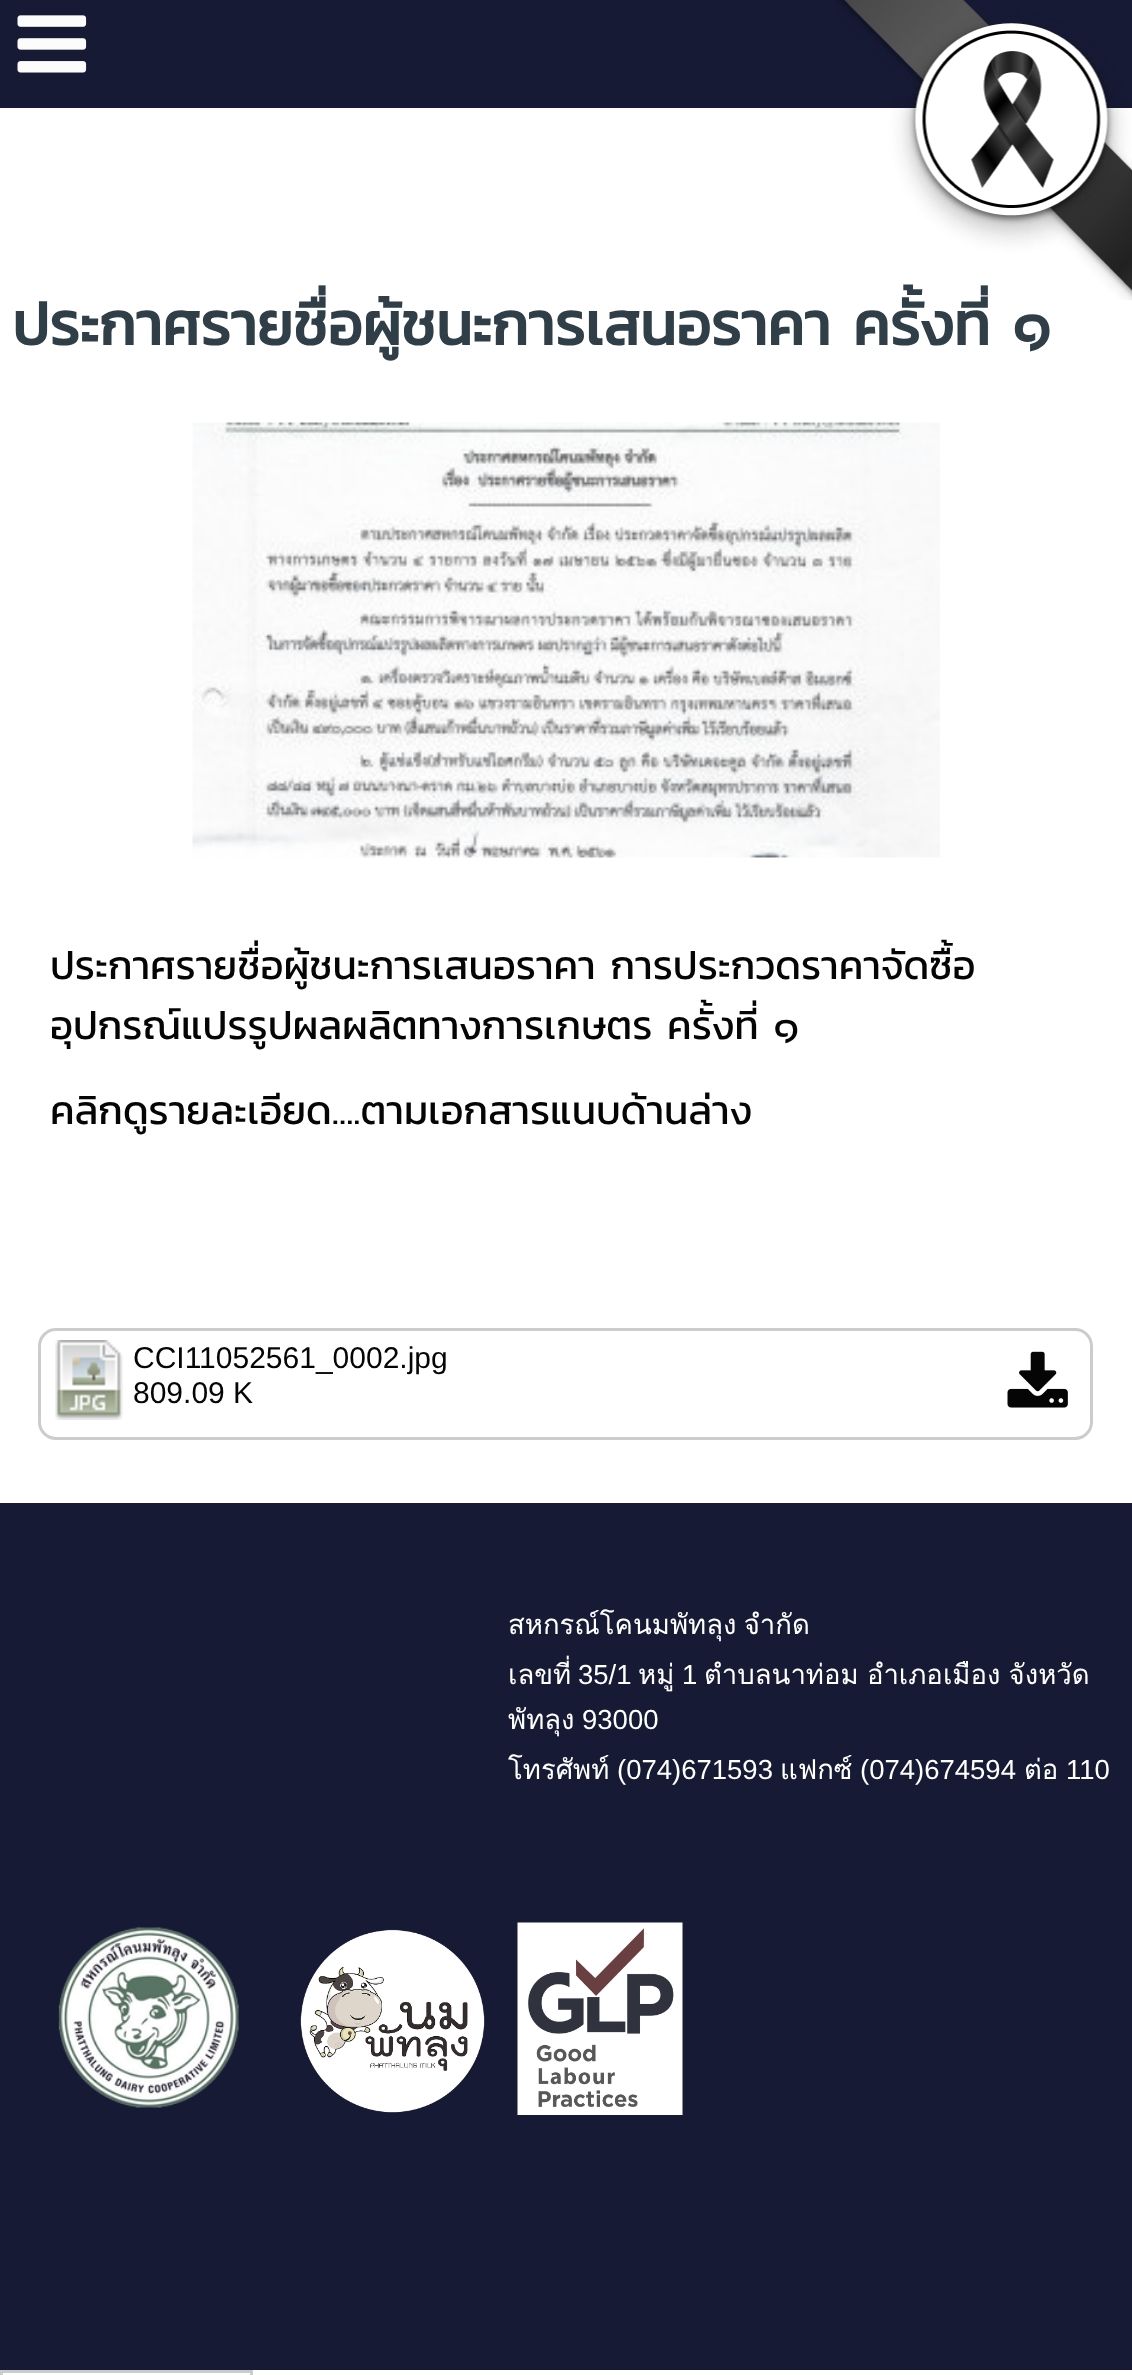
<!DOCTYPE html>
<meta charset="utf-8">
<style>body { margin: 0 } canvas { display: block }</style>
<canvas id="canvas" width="1132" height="2375"></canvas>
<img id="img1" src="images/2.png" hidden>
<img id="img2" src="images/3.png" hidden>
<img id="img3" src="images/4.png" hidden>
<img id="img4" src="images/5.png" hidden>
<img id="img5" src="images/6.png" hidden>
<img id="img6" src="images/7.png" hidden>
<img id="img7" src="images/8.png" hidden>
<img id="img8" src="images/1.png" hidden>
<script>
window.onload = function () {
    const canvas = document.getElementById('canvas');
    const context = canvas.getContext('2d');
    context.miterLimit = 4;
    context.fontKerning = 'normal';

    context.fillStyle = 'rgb(255, 255, 255)';
    context.fillRect(0, 0, 1132, 2375);
    context.fillStyle = 'rgb(22, 26, 53)';
    context.fillRect(0, 0, 1132, 108);
    context.drawImage(document.getElementById('img1'), 17, 15, 70, 58);
    context.drawImage(document.getElementById('img2'), 192, 422, 748, 436);
    context.beginPath();
    context.roundRect(39.5, 1329.5, 1052, 109, 16.5);
    context.strokeStyle = 'rgb(204, 204, 204)';
    context.lineWidth = 3;
    context.stroke();
    context.drawImage(document.getElementById('img3'), 55, 1340, 68, 80);
    context.drawImage(document.getElementById('img4'), 1007, 1351, 61, 57);
    context.fillRect(0, 1503, 1132, 867);
    context.drawImage(document.getElementById('img5'), 58, 1927, 181, 181);
    context.drawImage(document.getElementById('img6'), 300, 1929, 185, 184);
    context.drawImage(document.getElementById('img7'), 517, 1922, 166, 193);
    context.strokeRect(1.5, 2371.5, 250, 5);
    context.font = 'bold 60px Kanit';
    context.fillStyle = 'rgb(48, 62, 72)';
    context.fillText('ประกาศรายชื่อผู้ชนะการเสนอราคา ครั้งที่ ๑', 12, 345);
    context.drawImage(document.getElementById('img8'), 836, 0, 296, 300);
    context.font = '40px Kanit';
    context.fillStyle = 'rgb(5, 5, 5)';
    context.fillText('ประกาศรายชื่อผู้ชนะการเสนอราคา การประกวดราคาจัดซื้อ', 50, 979);
    context.fillText('อุปกรณ์แปรรูปผลผลิตทางการเกษตร ครั้งที่ ๑', 50, 1039);
    context.fillText('คลิกดูรายละเอียด....ตามเอกสารแนบด้านล่าง', 50, 1124);
    context.font = '30px Liberation Sans';
    context.fillText('CCI11052561_0002.jpg', 133, 1368);
    context.fillText('809.09 K', 133, 1403);
    context.wordSpacing = '-2px';
    context.font = '27.5px Loma';
    context.fillStyle = 'rgb(255, 255, 255)';
    context.fillText('สหกรณ์โคนมพัทลุง จำกัด', 508, 1634);
    context.wordSpacing = '0px';
    context.fillText('เลขที่', 508, 1684);
    context.font = '27.5px Liberation Sans';
    context.fillText('35/1', 578, 1684);
    context.font = '27.5px Loma';
    context.fillText('หมู่', 638, 1684);
    context.font = '27.5px Liberation Sans';
    context.fillText('1', 682, 1684);
    context.wordSpacing = '-1px';
    context.font = '27.5px Loma';
    context.fillText('ตำบลนาท่อม อำเภอเมือง จังหวัด', 704, 1684);
    context.wordSpacing = '0px';
    context.fillText('พัทลุง', 508, 1729);
    context.font = '27.5px Liberation Sans';
    context.fillText('93000', 582, 1729);
    context.font = '27.5px Loma';
    context.fillText('โทรศัพท์', 508, 1779);
    context.font = '27.5px Liberation Sans';
    context.fillText('(074)671593', 617, 1779);
    context.font = '27.5px Loma';
    context.fillText('แฟกซ์', 780, 1779);
    context.font = '27.5px Liberation Sans';
    context.fillText('(074)674594', 860, 1779);
    context.font = '27.5px Loma';
    context.fillText('ต่อ', 1024, 1779);
    context.font = '27.5px Liberation Sans';
    context.fillText('110', 1066, 1779);
};
</script>
